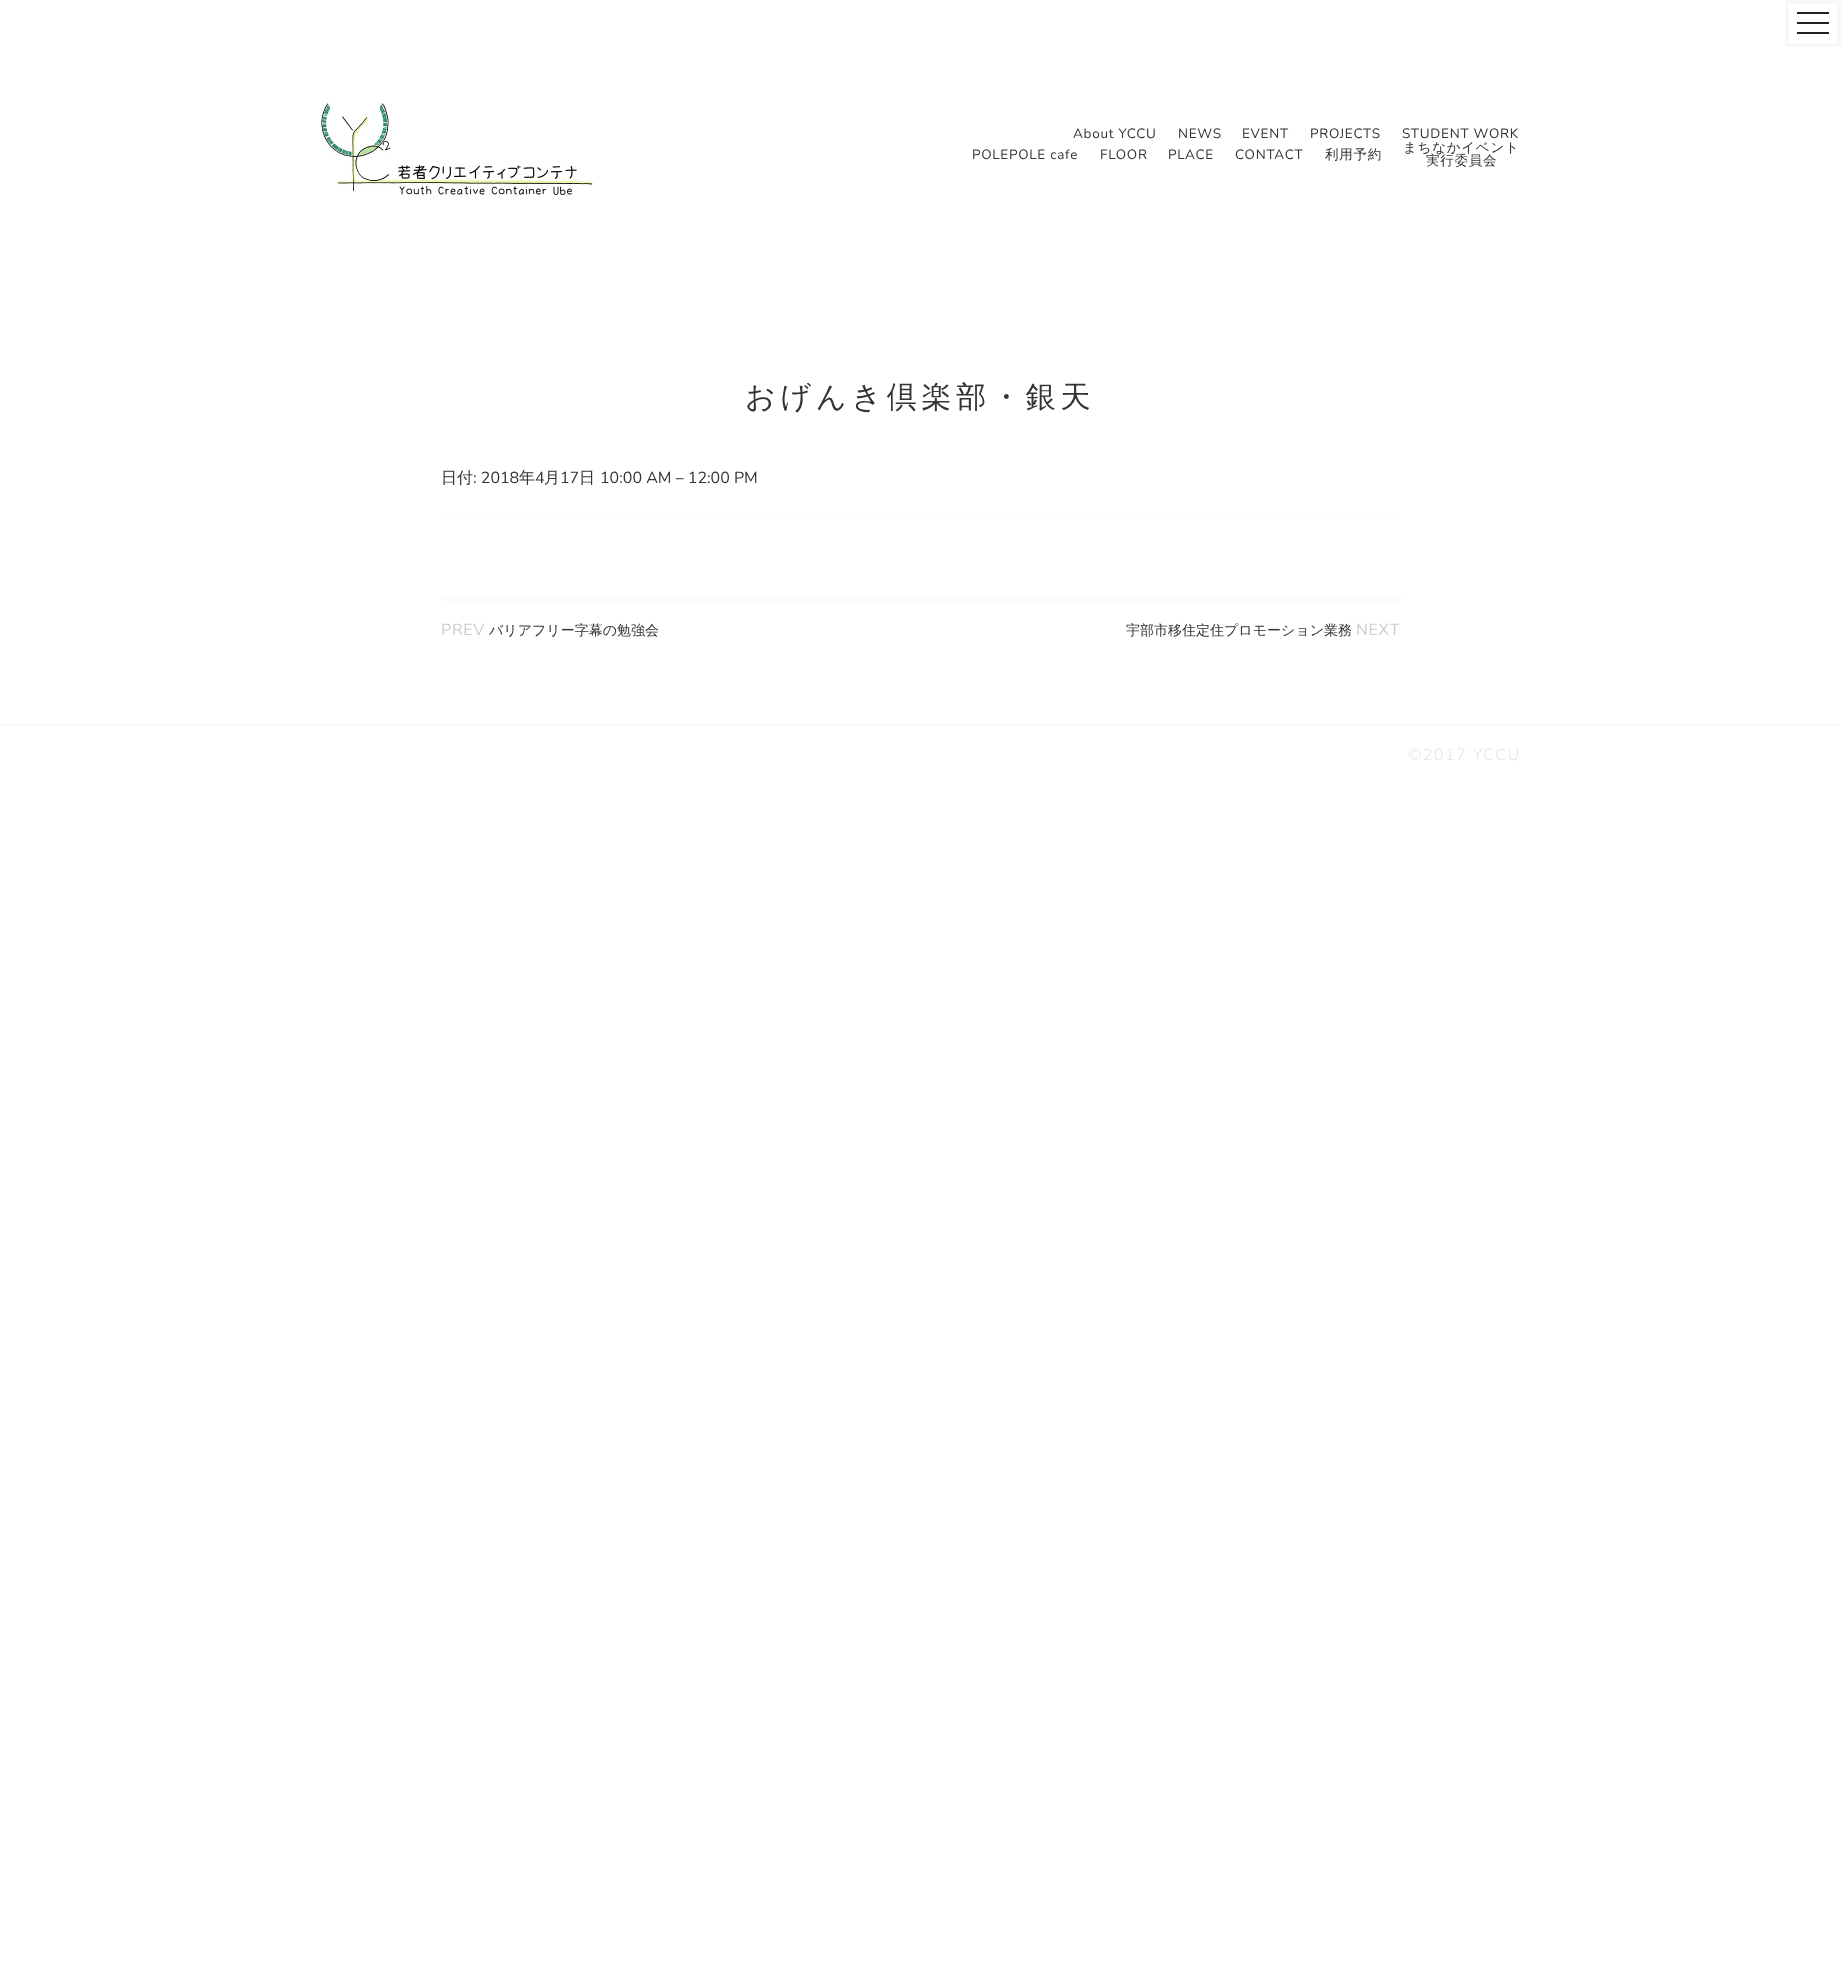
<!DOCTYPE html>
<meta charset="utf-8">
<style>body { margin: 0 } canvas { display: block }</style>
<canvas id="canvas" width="1841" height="1967"></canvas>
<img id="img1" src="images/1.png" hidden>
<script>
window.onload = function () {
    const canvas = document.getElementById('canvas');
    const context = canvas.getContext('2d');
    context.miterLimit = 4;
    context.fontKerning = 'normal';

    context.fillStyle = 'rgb(255, 255, 255)';
    context.fillRect(0, 0, 1841, 1967);
    context.strokeStyle = 'rgb(248, 248, 248)';
    context.lineWidth = 4;
    context.strokeRect(1787, 2, 52, 43);
    context.fillStyle = 'rgb(34, 34, 34)';
    context.fillRect(1797, 22, 32, 2);
    context.fillRect(1797, 12, 32, 2);
    context.fillRect(1797, 32, 32, 2);
    context.drawImage(document.getElementById('img1'), 321, 102, 272, 93);
    context.fillStyle = 'rgb(249, 249, 249)';
    context.fillRect(441, 516, 960, 1);
    context.fillRect(441, 597, 960, 4);
    context.fillRect(0, 724, 1841, 2);
    context.letterSpacing = '0.75px';
    context.font = '13.5px Nunito';
    context.fillStyle = 'rgb(51, 51, 51)';
    context.fillText('About YCCU', 1073, 138);
    context.fillText('NEWS', 1178, 138);
    context.fillText('EVENT', 1242, 138);
    context.fillText('PROJECTS', 1310, 138);
    context.fillText('STUDENT WORK', 1402, 138);
    context.fillText('POLEPOLE cafe', 972, 159);
    context.fillText('FLOOR', 1100, 159);
    context.fillText('PLACE', 1168, 159);
    context.fillText('CONTACT', 1235, 159);
    context.font = '500 13.5px WenQuanYi Zen Hei';
    context.fillText('利用予約', 1325, 159);
    context.fillText('まちなかイベント', 1403, 152);
    context.fillText('実行委員会', 1426, 165);
    context.letterSpacing = '4.75px';
    context.font = '500 30px WenQuanYi Zen Hei';
    context.fillText('おげんき倶楽部・銀天', 745, 407);
    context.letterSpacing = '0px';
    context.font = '500 16px WenQuanYi Zen Hei';
    context.fillText('日付', 441, 483);
    context.font = '16px Nunito';
    context.fillText(': 2018', 473, 483);
    context.font = '500 16px WenQuanYi Zen Hei';
    context.fillText('年', 519, 483);
    context.font = '16px Nunito';
    context.fillText('4', 535, 483);
    context.font = '500 16px WenQuanYi Zen Hei';
    context.fillText('月', 544, 483);
    context.font = '16px Nunito';
    context.fillText('17', 560, 483);
    context.font = '500 16px WenQuanYi Zen Hei';
    context.fillText('日', 579, 483);
    context.font = '16px Nunito';
    context.fillText('10:00 AM – 12:00 PM', 600, 483);
    context.letterSpacing = '0.75px';
    context.fillStyle = 'rgb(204, 204, 204)';
    context.fillText('PREV', 441, 635);
    context.letterSpacing = '0px';
    context.font = '500 14px WenQuanYi Zen Hei';
    context.fillStyle = 'rgb(51, 51, 51)';
    context.fillText('バリアフリー字幕の勉強会', 489, 635);
    context.fillText('宇部市移住定住プロモーション業務', 1126, 635);
    context.letterSpacing = '0.75px';
    context.font = '16px Nunito';
    context.fillStyle = 'rgb(204, 204, 204)';
    context.fillText('NEXT', 1356, 635);
    context.letterSpacing = '1.6px';
    context.font = '300 16px Nunito';
    context.fillStyle = 'rgb(228, 228, 228)';
    context.fillText('©2017 YCCU', 1408, 760);
};
</script>
